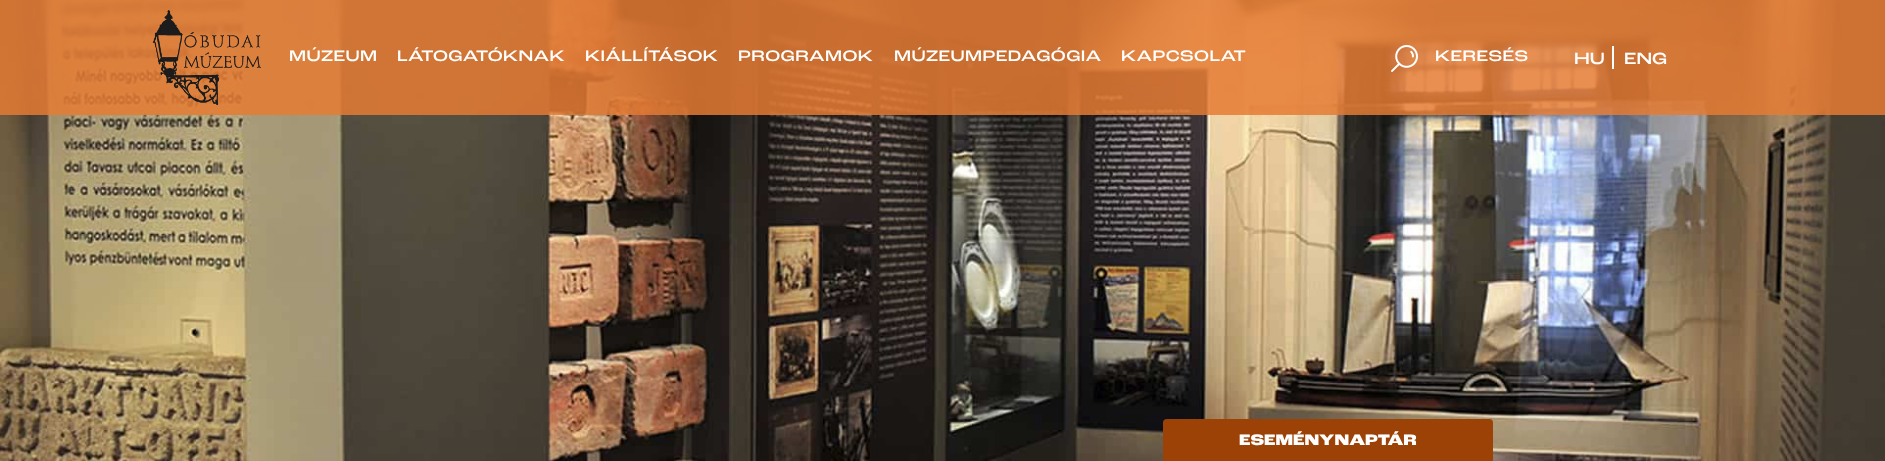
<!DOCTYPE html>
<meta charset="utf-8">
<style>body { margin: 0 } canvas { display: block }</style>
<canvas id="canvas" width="1885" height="461"></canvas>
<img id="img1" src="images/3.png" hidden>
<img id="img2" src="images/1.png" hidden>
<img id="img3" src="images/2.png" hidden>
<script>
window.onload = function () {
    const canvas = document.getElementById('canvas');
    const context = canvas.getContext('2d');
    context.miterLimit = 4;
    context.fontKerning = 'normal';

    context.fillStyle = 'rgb(255, 255, 255)';
    context.fillRect(0, 0, 1885, 461);
    context.drawImage(document.getElementById('img1'), 0, 0, 1885, 461);
    context.fillStyle = 'rgba(229, 123, 52, 0.85)';
    context.fillRect(0, 0, 1885, 115);
    context.drawImage(document.getElementById('img2'), 152, 10, 109, 96);
    context.drawImage(document.getElementById('img3'), 1391, 45, 27, 27);
    context.fillStyle = 'rgb(255, 255, 255)';
    context.fillRect(1612, 46, 2, 23);
    context.fillStyle = 'rgb(156, 66, 6)';
    context.beginPath();
    context.roundRect(1163, 419, 330, 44, 4);
    context.fill();
    context.letterSpacing = '0.4px';
    context.font = '500 16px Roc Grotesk';
    context.fillStyle = 'rgb(255, 255, 255)';
    context.fillText('MÚZEUM', 289, 61);
    context.fillText('LÁTOGATÓKNAK', 397, 61);
    context.fillText('KIÁLLÍTÁSOK', 585, 61);
    context.fillText('PROGRAMOK', 738, 61);
    context.fillText('MÚZEUMPEDAGÓGIA', 894, 61);
    context.fillText('KAPCSOLAT', 1121, 61);
    context.fillText('KERESÉS', 1435, 61);
    context.letterSpacing = '0px';
    context.font = '500 17px Roc Grotesk';
    context.fillText('HU', 1574, 64);
    context.fillText('ENG', 1624, 64);
    context.font = '800 16px Roc Grotesk';
    context.fillText('ESEMÉNYNAPTÁR', 1239, 445);
};
</script>
